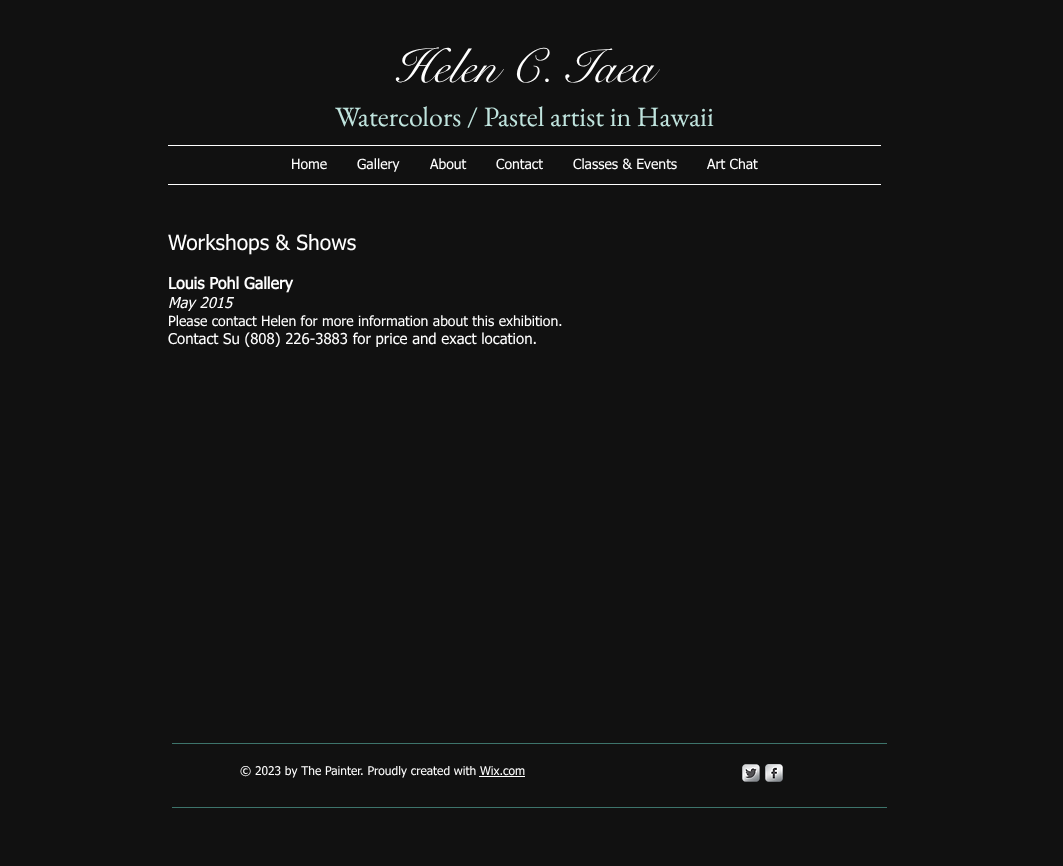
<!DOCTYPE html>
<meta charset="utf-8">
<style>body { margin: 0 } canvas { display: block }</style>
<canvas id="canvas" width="1063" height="866"></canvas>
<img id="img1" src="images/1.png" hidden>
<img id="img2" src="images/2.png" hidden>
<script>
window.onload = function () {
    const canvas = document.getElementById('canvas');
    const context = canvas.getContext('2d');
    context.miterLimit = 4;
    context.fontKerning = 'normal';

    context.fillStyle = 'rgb(17, 17, 17)';
    context.fillRect(0, 0, 1063, 866);
    context.fillStyle = 'rgb(255, 255, 255)';
    context.fillRect(168, 145, 713, 1);
    context.fillRect(168, 184, 713, 1);
    context.fillStyle = 'rgb(61, 116, 107)';
    context.fillRect(172, 743, 715, 1);
    context.fillStyle = 'rgb(255, 255, 255)';
    context.fillRect(479, 776, 46, 1);
    context.drawImage(document.getElementById('img1'), 742, 764, 18, 18);
    context.drawImage(document.getElementById('img2'), 765, 764, 18, 18);
    context.fillStyle = 'rgb(61, 116, 107)';
    context.fillRect(172, 807, 715, 1);
    context.font = '48px "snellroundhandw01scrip"';
    context.fillStyle = 'rgb(255, 255, 255)';
    context.fillText('Helen C. Iaea', 394, 82);
    context.font = '28px EB Garamond';
    context.fillStyle = 'rgb(192, 228, 222)';
    context.fillText('Watercolors / Pastel artist in Hawaii', 335, 126);
    context.font = '14px tahoma';
    context.fillStyle = 'rgb(255, 255, 255)';
    context.fillText('Home', 291, 169);
    context.fillText('Gallery', 357, 169);
    context.fillText('About', 430, 169);
    context.fillText('Contact', 496, 169);
    context.fillText('Classes & Events', 573, 169);
    context.fillText('Art Chat', 707, 169);
    context.font = '21px tahoma';
    context.fillText('Workshops & Shows', 168, 250);
    context.font = 'bold 16px tahoma';
    context.fillText('Louis Pohl Gallery', 168, 289);
    context.font = 'italic 15px tahoma';
    context.fillText('May 2015', 168, 308);
    context.font = '14px tahoma';
    context.fillText('Please contact Helen for more information about this exhibition.', 168, 326);
    context.font = '15px tahoma';
    context.fillText('Contact Su (808) 226-3883 for price and exact location.', 168, 344);
    context.font = '12px tahoma';
    context.fillText('© 2023 by The Painter. Proudly created with Wix.com', 240, 775);
};
</script>
